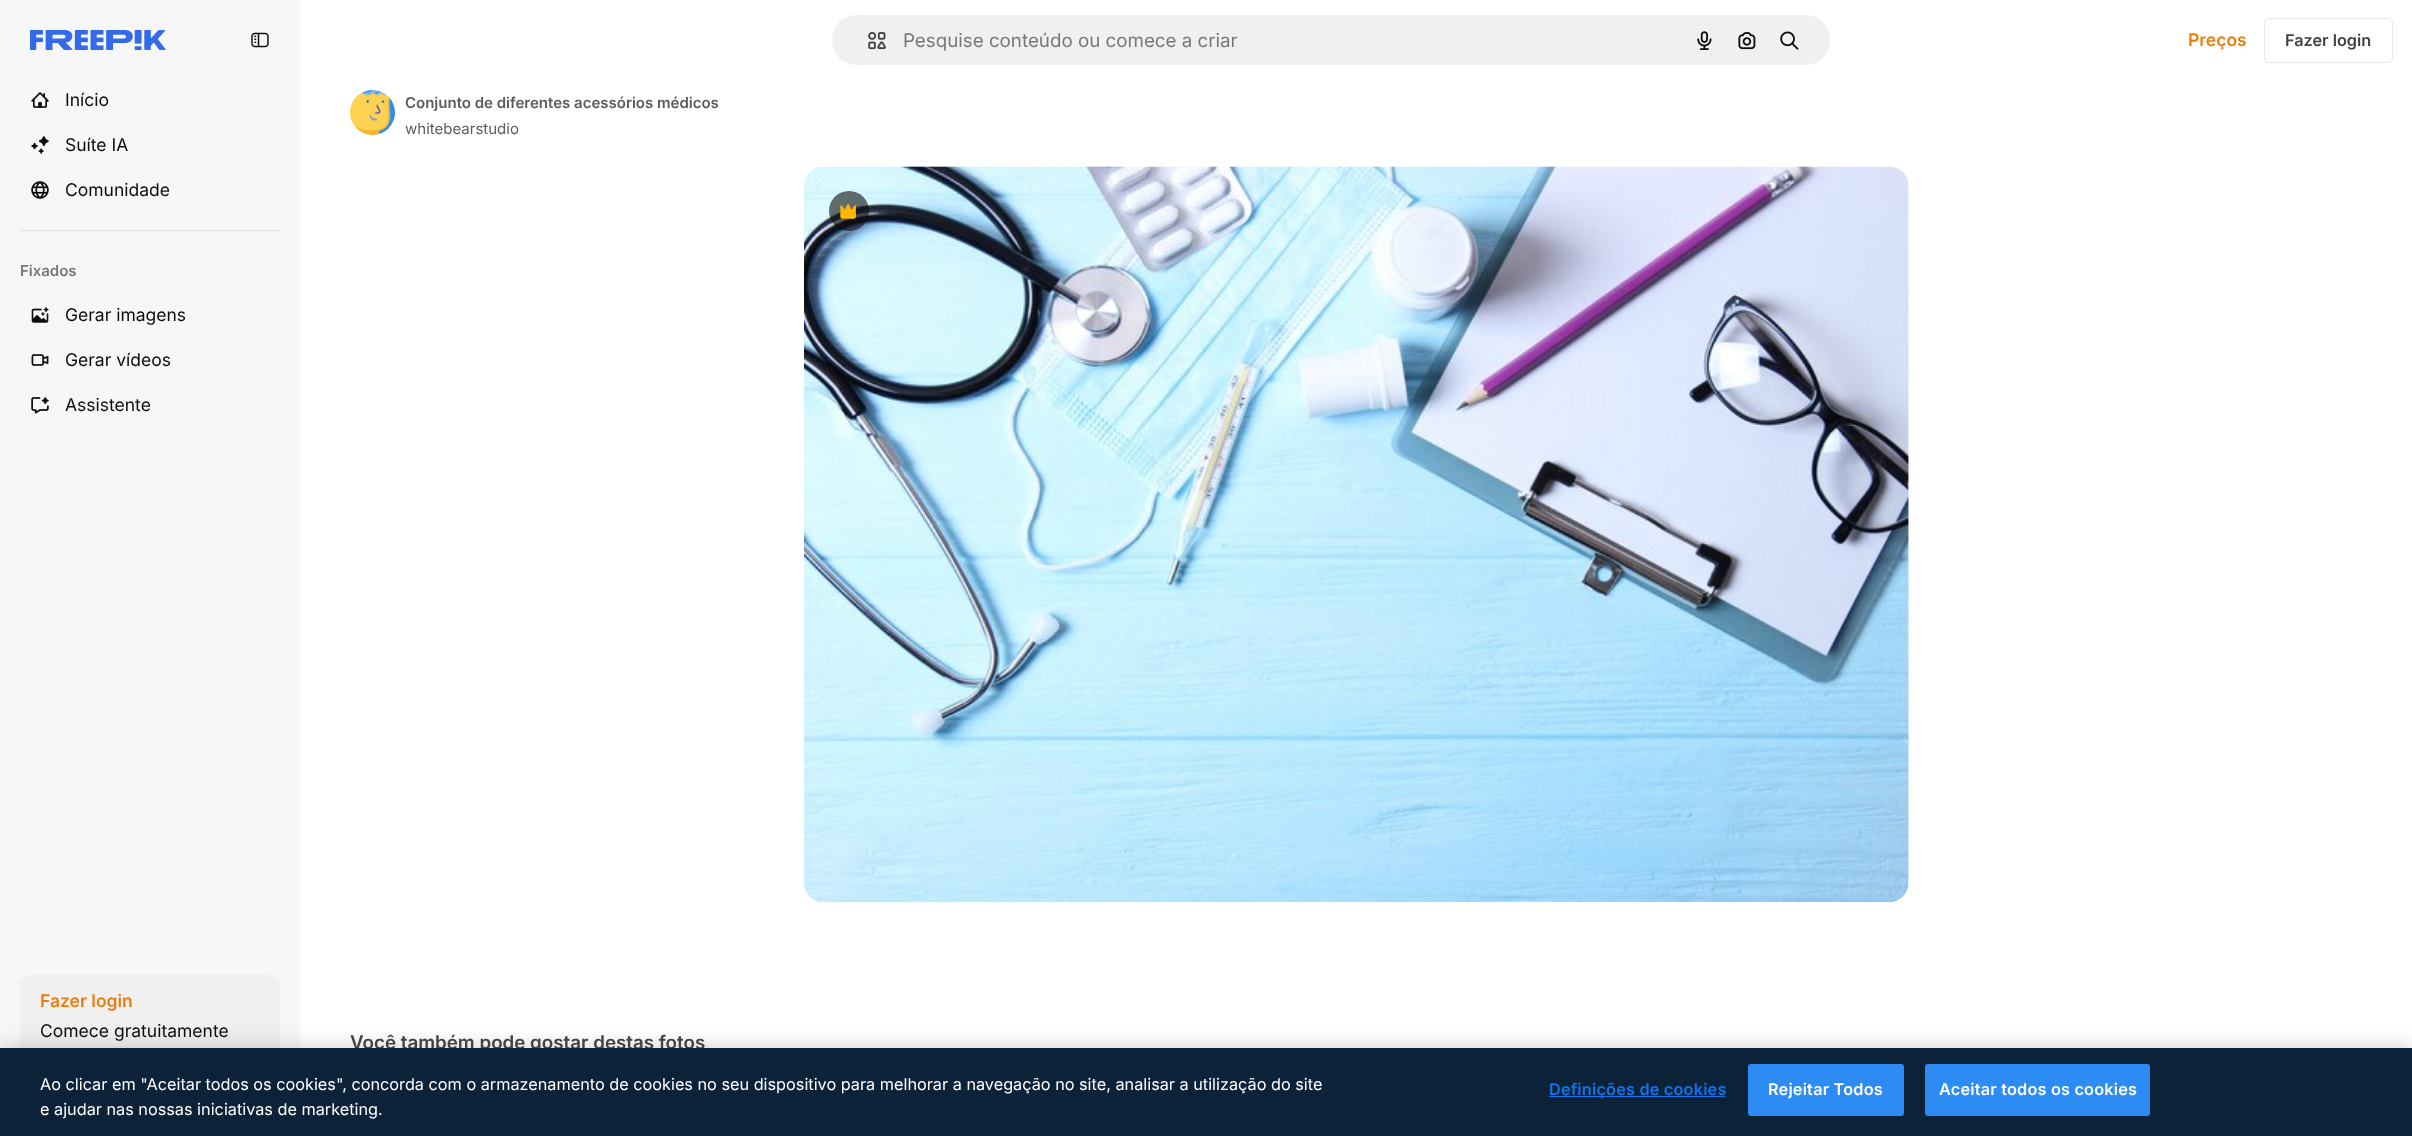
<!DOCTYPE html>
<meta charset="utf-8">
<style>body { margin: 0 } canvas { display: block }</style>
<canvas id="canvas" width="2412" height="1136"></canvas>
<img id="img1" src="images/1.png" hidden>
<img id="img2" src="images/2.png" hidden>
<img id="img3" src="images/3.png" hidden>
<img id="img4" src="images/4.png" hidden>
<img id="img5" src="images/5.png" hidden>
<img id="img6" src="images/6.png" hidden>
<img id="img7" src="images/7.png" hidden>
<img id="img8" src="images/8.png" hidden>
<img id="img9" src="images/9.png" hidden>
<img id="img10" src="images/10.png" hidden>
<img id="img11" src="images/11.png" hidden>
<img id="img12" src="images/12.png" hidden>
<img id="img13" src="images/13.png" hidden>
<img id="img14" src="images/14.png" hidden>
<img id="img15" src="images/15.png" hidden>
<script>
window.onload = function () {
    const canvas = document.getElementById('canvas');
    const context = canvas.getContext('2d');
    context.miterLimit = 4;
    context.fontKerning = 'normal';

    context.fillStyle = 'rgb(255, 255, 255)';
    context.fillRect(0, 0, 2412, 1136);
    context.fillStyle = 'rgb(247, 247, 247)';
    context.fillRect(0, 0, 300, 1048);
    context.drawImage(document.getElementById('img1'), 30, 30, 136, 20);
    context.drawImage(document.getElementById('img2'), 251, 32, 18, 16);
    context.drawImage(document.getElementById('img3'), 31, 92, 18, 16);
    context.drawImage(document.getElementById('img4'), 31, 136, 18, 18);
    context.drawImage(document.getElementById('img5'), 31, 181, 18, 18);
    context.fillStyle = 'rgb(224, 224, 224)';
    context.fillRect(20, 230, 260, 1);
    context.drawImage(document.getElementById('img6'), 31, 307, 18, 16);
    context.drawImage(document.getElementById('img7'), 31, 354, 18, 12);
    context.drawImage(document.getElementById('img8'), 31, 397, 18, 17);
    context.fillStyle = 'rgb(240, 240, 240)';
    context.beginPath();
    context.roundRect(20, 975, 260, 81, 10);
    context.fill();
    context.beginPath();
    context.roundRect(831.5, 14.5, 999, 51, 25.5);
    context.fill();
    context.strokeStyle = 'rgb(255, 255, 255)';
    context.stroke();
    context.drawImage(document.getElementById('img9'), 868, 31, 18, 19);
    context.drawImage(document.getElementById('img10'), 1697, 31, 15, 19);
    context.drawImage(document.getElementById('img11'), 1738, 32, 18, 18);
    context.drawImage(document.getElementById('img12'), 1780, 31, 19, 19);
    context.beginPath();
    context.roundRect(2264.5, 18.5, 128, 44, 4.5);
    context.strokeStyle = 'rgb(231, 231, 231)';
    context.stroke();
    context.drawImage(document.getElementById('img13'), 350, 90, 45, 45);
    context.drawImage(document.getElementById('img14'), 804, 166, 1105, 737);
    context.fillStyle = 'rgba(13, 13, 13, 0.6)';
    context.beginPath();
    context.arc(849, 211, 20, 0, 2 * Math.PI);
    context.fill();
    context.drawImage(document.getElementById('img15'), 840, 204, 16, 15);
    context.fillStyle = 'rgba(0, 0, 0, 0.2)';
    context.filter = 'blur(11px)';
    context.beginPath();
    context.rect(0, 1048, 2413, 88);
    context.fill();
    context.filter = 'none';
    context.font = '17.5px Inter';
    context.fillStyle = 'rgb(13, 13, 13)';
    context.fillText('Início', 65, 106);
    context.fillText('Suíte IA', 65, 151);
    context.fillText('Comunidade', 65, 196);
    context.font = '600 15px Inter';
    context.fillStyle = 'rgb(120, 120, 120)';
    context.fillText('Fixados', 20, 276);
    context.font = '17.5px Inter';
    context.fillStyle = 'rgb(13, 13, 13)';
    context.fillText('Gerar imagens', 65, 321);
    context.fillText('Gerar vídeos', 65, 366);
    context.fillText('Assistente', 65, 411);
    context.font = '600 17.5px Inter';
    context.fillStyle = 'rgb(234, 126, 17)';
    context.fillText('Fazer login', 40, 1007);
    context.font = '17.5px Inter';
    context.fillStyle = 'rgb(13, 13, 13)';
    context.fillText('Comece gratuitamente', 40, 1037);
    context.font = '18.75px Inter';
    context.fillStyle = 'rgb(120, 120, 120)';
    context.fillText('Pesquise conteúdo ou comece a criar', 903, 47);
    context.font = '600 17.5px Inter';
    context.fillStyle = 'rgb(234, 126, 17)';
    context.fillText('Preços', 2188, 46);
    context.font = '600 16.25px Inter';
    context.fillStyle = 'rgb(66, 66, 66)';
    context.fillText('Fazer login', 2285, 46);
    context.font = '600 15px Inter';
    context.fillStyle = 'rgb(92, 92, 92)';
    context.fillText('Conjunto de diferentes acessórios médicos', 405, 108);
    context.font = '15px Inter';
    context.fillText('whitebearstudio', 405, 134);
    context.font = '600 18.75px Inter';
    context.fillStyle = 'rgb(66, 66, 66)';
    context.fillText('Você também pode gostar destas fotos', 350, 1049);
    context.fillStyle = 'rgb(11, 34, 57)';
    context.fillRect(0, 1048, 2412, 88);
    context.font = '16.25px Inter';
    context.fillStyle = 'rgb(255, 255, 255)';
    context.fillText('Ao clicar em "Aceitar todos os cookies", concorda com o armazenamento de cookies no seu dispositivo para melhorar a navegação no site, analisar a utilização do site', 40, 1090);
    context.fillText('e ajudar nas nossas iniciativas de marketing.', 40, 1115);
    context.fillStyle = 'rgb(18, 115, 235)';
    context.fillRect(1549, 1096, 176, 1);
    context.letterSpacing = '0.2px';
    context.font = '600 16.25px Inter';
    context.fillText('Definições de cookies', 1549, 1095);
    context.fillStyle = 'rgb(44, 140, 244)';
    context.beginPath();
    context.roundRect(1748.5, 1064.5, 155, 51, 2);
    context.fill();
    context.strokeStyle = 'rgb(44, 140, 244)';
    context.stroke();
    context.fillStyle = 'rgb(255, 255, 255)';
    context.fillText('Rejeitar Todos', 1768, 1095);
    context.fillStyle = 'rgb(44, 140, 244)';
    context.beginPath();
    context.roundRect(1925.5, 1064.5, 224, 51, 2);
    context.fill();
    context.stroke();
    context.fillStyle = 'rgb(255, 255, 255)';
    context.fillText('Aceitar todos os cookies', 1939, 1095);
};
</script>
